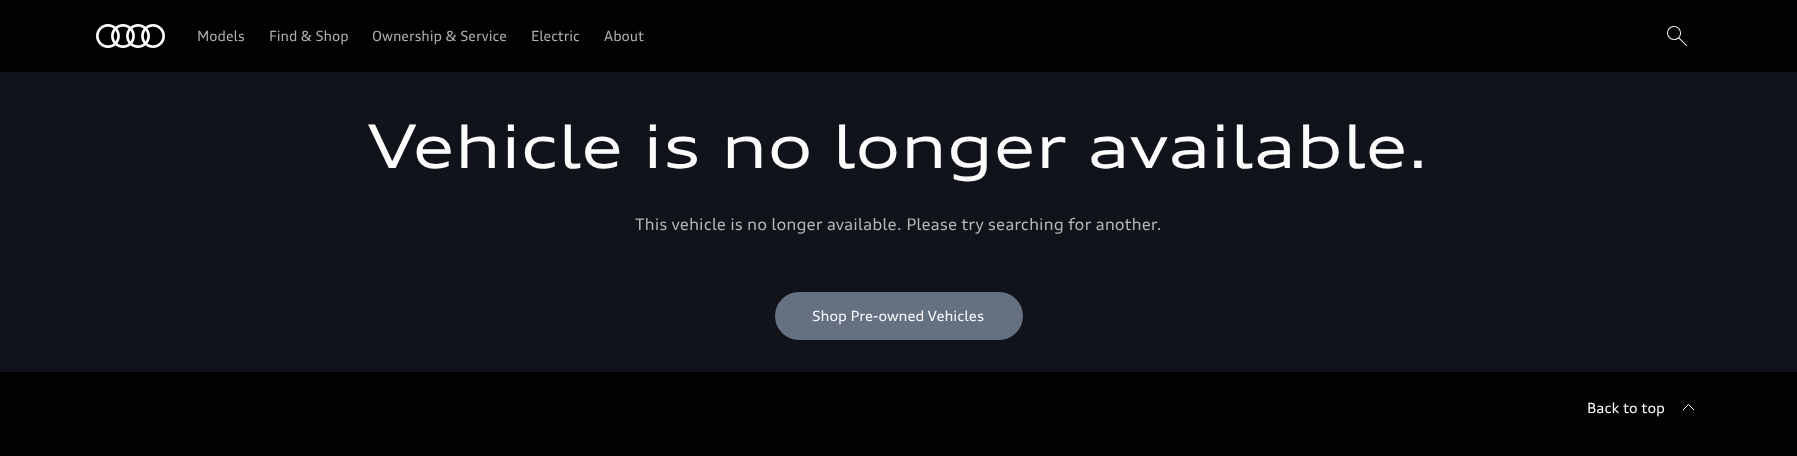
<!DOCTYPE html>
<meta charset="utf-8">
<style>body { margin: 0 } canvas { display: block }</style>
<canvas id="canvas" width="1797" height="456"></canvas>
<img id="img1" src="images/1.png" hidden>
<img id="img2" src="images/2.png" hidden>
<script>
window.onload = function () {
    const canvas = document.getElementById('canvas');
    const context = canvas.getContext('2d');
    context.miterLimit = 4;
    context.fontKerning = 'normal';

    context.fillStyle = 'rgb(16, 19, 25)';
    context.fillRect(0, 0, 1797, 456);
    context.fillStyle = 'rgb(2, 2, 3)';
    context.fillRect(0, 0, 1797, 72);
    context.drawImage(document.getElementById('img1'), 96, 24, 69, 24);
    context.drawImage(document.getElementById('img2'), 1667, 26, 21, 21);
    context.fillStyle = 'rgb(101, 112, 129)';
    context.beginPath();
    context.roundRect(775, 292, 248, 48, 24);
    context.fill();
    context.fillStyle = 'rgb(2, 2, 3)';
    context.fillRect(0, 372, 1797, 84);
    context.beginPath();
    context.moveTo(1694, 410);
    context.lineTo(1688.5, 404.5);
    context.lineTo(1683, 410);
    context.strokeStyle = 'rgb(252, 252, 253)';
    context.stroke();
    context.font = '14px "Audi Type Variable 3"';
    context.fillStyle = 'rgb(177, 177, 178)';
    context.fillText('Models', 197, 41);
    context.fillText('Find & Shop', 269, 41);
    context.fillText('Ownership & Service', 372, 41);
    context.fillText('Electric', 531, 41);
    context.fillText('About', 604, 41);
    context.font = '60px "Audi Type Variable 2"';
    context.fillStyle = 'rgb(252, 252, 253)';
    context.fillText('Vehicle is no longer available.', 368, 168);
    context.font = '16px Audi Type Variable';
    context.fillStyle = 'rgb(181, 182, 185)';
    context.fillText('This vehicle is no longer available. Please try searching for another.', 635, 230);
    context.font = '14px Audi Type Variable';
    context.fillStyle = 'rgb(252, 252, 253)';
    context.fillText('Shop Pre-owned Vehicles', 812, 321);
    context.fillText('Back to top', 1587, 413);
};
</script>
